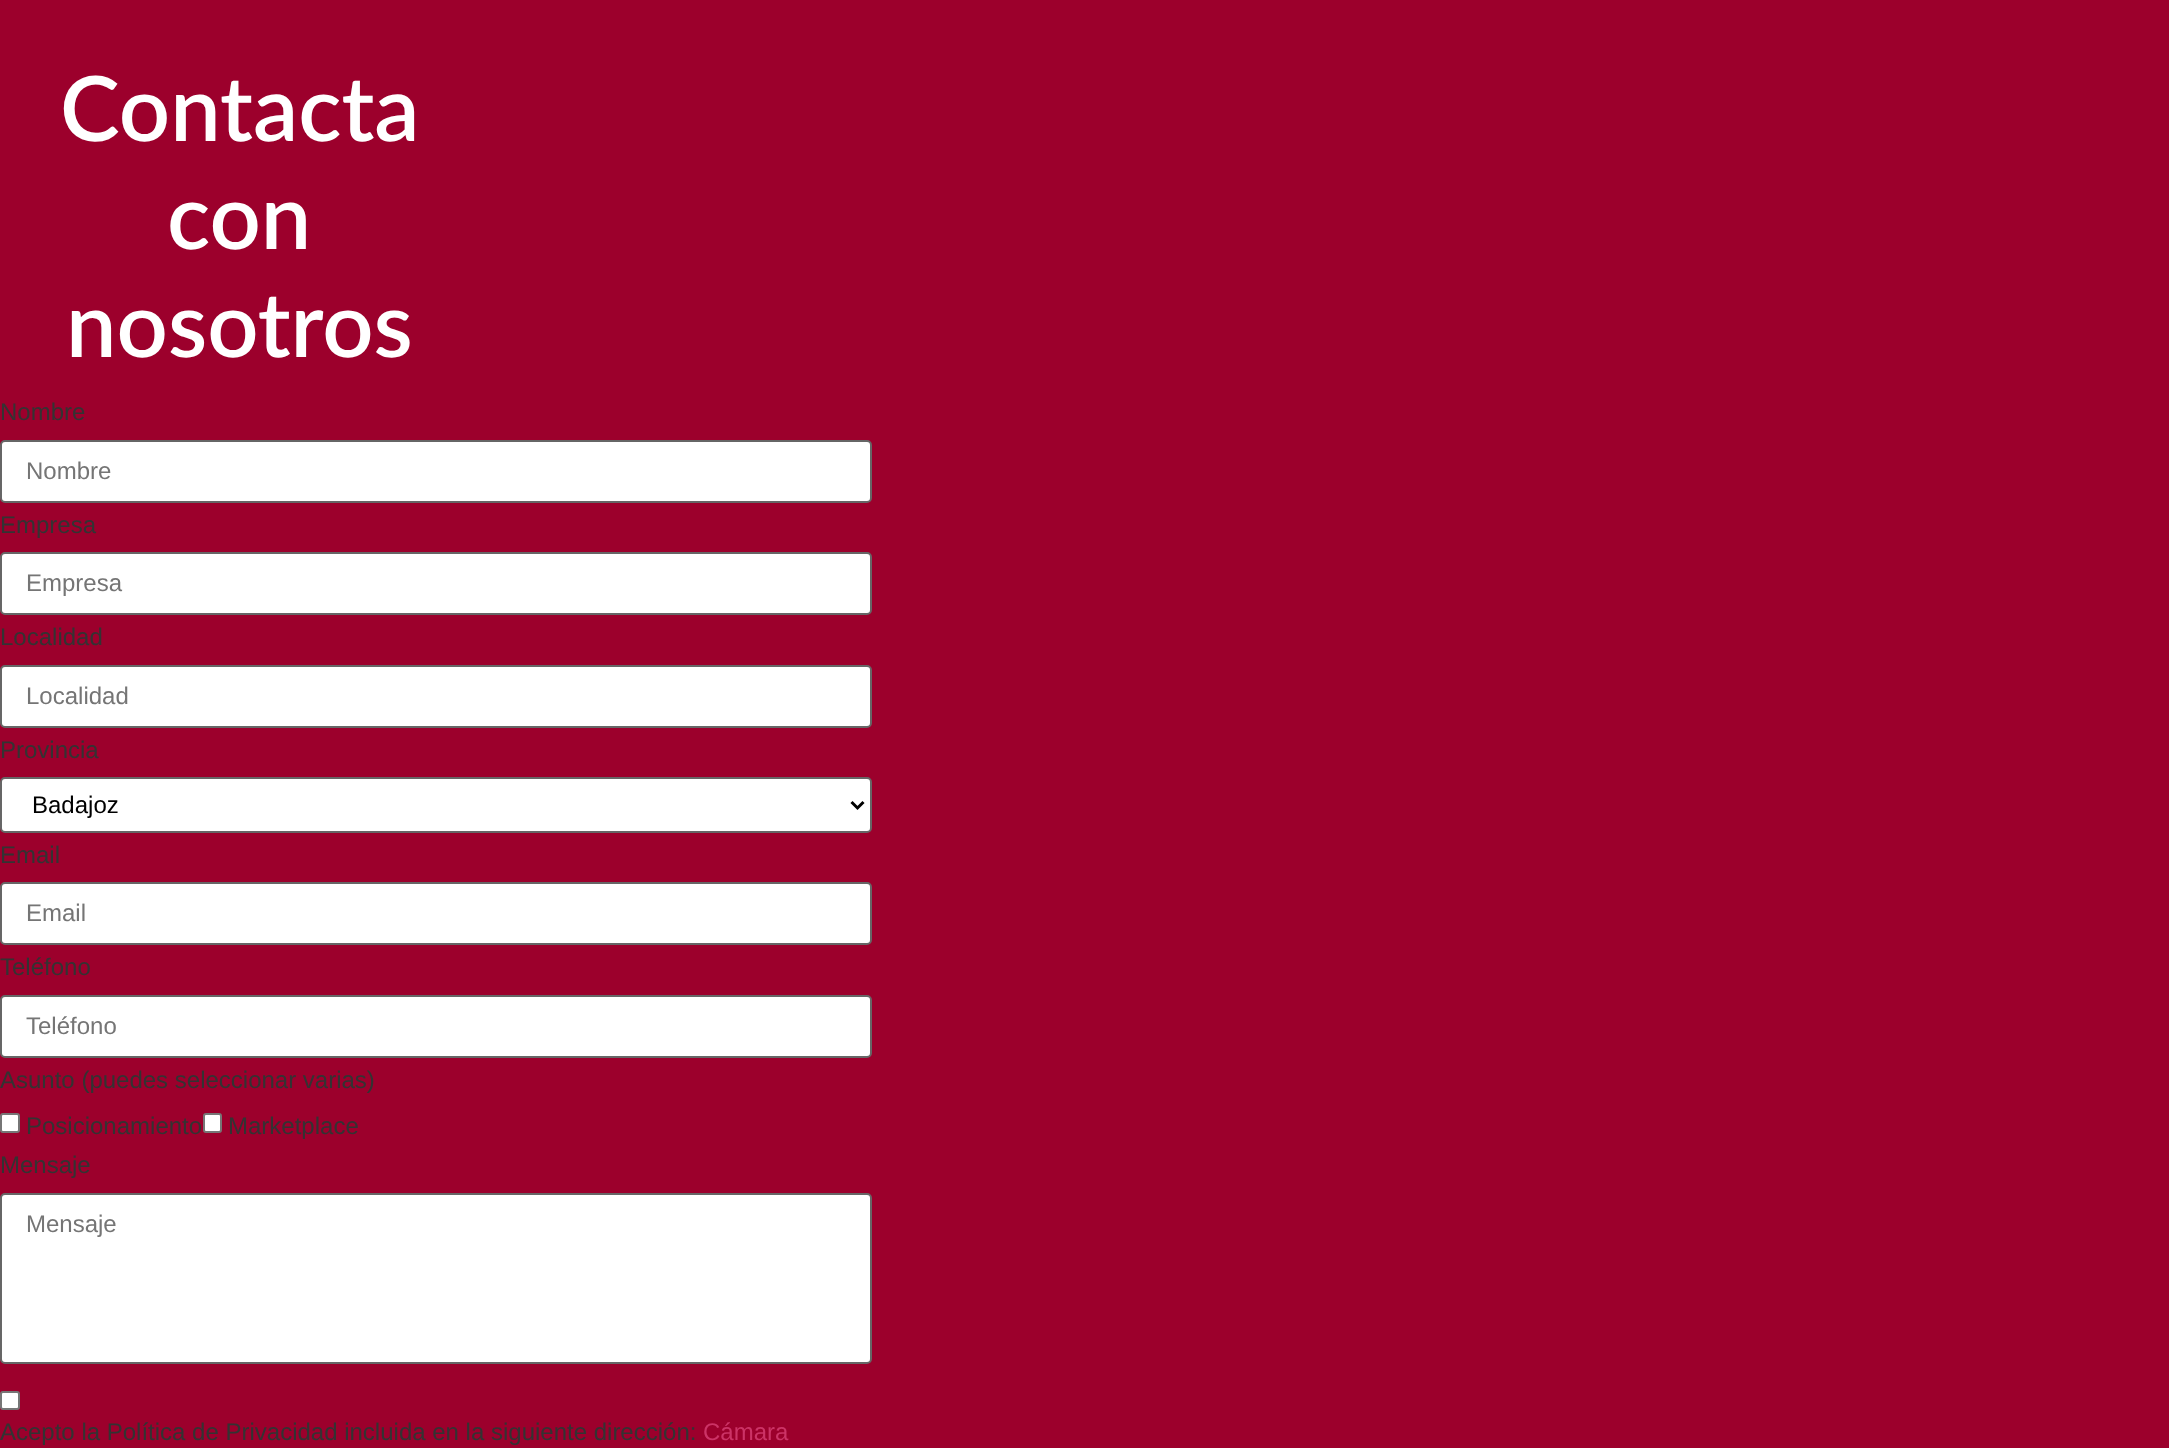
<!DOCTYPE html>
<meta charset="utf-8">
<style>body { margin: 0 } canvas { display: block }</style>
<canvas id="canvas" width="2169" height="1448"></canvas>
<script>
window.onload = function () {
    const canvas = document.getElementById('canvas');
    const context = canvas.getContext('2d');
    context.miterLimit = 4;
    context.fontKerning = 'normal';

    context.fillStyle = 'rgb(156, 0, 44)';
    context.fillRect(0, 0, 2169, 1448);
    context.fillStyle = 'rgb(255, 255, 255)';
    context.beginPath();
    context.roundRect(1, 441, 870, 61, 4);
    context.fill();
    context.strokeStyle = 'rgb(102, 102, 102)';
    context.lineWidth = 2;
    context.stroke();
    context.beginPath();
    context.roundRect(1, 553, 870, 61, 4);
    context.fill();
    context.stroke();
    context.beginPath();
    context.roundRect(1, 666, 870, 61, 4);
    context.fill();
    context.stroke();
    context.beginPath();
    context.roundRect(1, 778, 870, 54, 4);
    context.fill();
    context.stroke();
    context.beginPath();
    context.moveTo(851.5, 802);
    context.lineTo(857.5, 808);
    context.lineTo(863.5, 802);
    context.strokeStyle = 'rgb(0, 0, 0)';
    context.lineWidth = 3;
    context.stroke();
    context.beginPath();
    context.roundRect(1, 883, 870, 61, 4);
    context.fill();
    context.strokeStyle = 'rgb(102, 102, 102)';
    context.lineWidth = 2;
    context.stroke();
    context.beginPath();
    context.roundRect(1, 996, 870, 61, 4);
    context.fill();
    context.stroke();
    context.beginPath();
    context.roundRect(1, 1114, 18, 18, 2);
    context.fill();
    context.strokeStyle = 'rgb(118, 118, 118)';
    context.stroke();
    context.beginPath();
    context.roundRect(204, 1114, 17, 18, 2);
    context.fill();
    context.stroke();
    context.beginPath();
    context.roundRect(1, 1194, 870, 169, 4);
    context.fill();
    context.strokeStyle = 'rgb(102, 102, 102)';
    context.stroke();
    context.beginPath();
    context.roundRect(1, 1392, 18, 17, 2);
    context.fill();
    context.strokeStyle = 'rgb(118, 118, 118)';
    context.stroke();
    context.font = '600 90px Lato';
    context.fillText('Contacta', 60, 141);
    context.fillText('con', 167, 249);
    context.fillText('nosotros', 66, 357);
    context.font = '24px Liberation Sans';
    context.fillStyle = 'rgb(51, 51, 51)';
    context.fillText('Nombre', 0, 420);
    context.fillStyle = 'rgb(117, 117, 117)';
    context.fillText('Nombre', 26, 479);
    context.fillStyle = 'rgb(51, 51, 51)';
    context.fillText('Empresa', 0, 533);
    context.fillStyle = 'rgb(117, 117, 117)';
    context.fillText('Empresa', 26, 591);
    context.fillStyle = 'rgb(51, 51, 51)';
    context.fillText('Localidad', 0, 645);
    context.fillStyle = 'rgb(117, 117, 117)';
    context.fillText('Localidad', 26, 704);
    context.fillStyle = 'rgb(51, 51, 51)';
    context.fillText('Provincia', 0, 758);
    context.fillStyle = 'rgb(0, 0, 0)';
    context.fillText('Badajoz', 32, 813);
    context.fillStyle = 'rgb(51, 51, 51)';
    context.fillText('Email', 0, 863);
    context.fillStyle = 'rgb(117, 117, 117)';
    context.fillText('Email', 26, 921);
    context.fillStyle = 'rgb(51, 51, 51)';
    context.fillText('Teléfono', 0, 975);
    context.fillStyle = 'rgb(117, 117, 117)';
    context.fillText('Teléfono', 26, 1034);
    context.fillStyle = 'rgb(51, 51, 51)';
    context.fillText('Asunto (puedes seleccionar varias)', 0, 1088);
    context.fillText('Posicionamiento', 26, 1134);
    context.fillText('Marketplace', 228, 1134);
    context.fillText('Mensaje', 0, 1173);
    context.fillStyle = 'rgb(117, 117, 117)';
    context.fillText('Mensaje', 26, 1232);
    context.fillStyle = 'rgb(51, 51, 51)';
    context.fillText('Acepto la Política de Privacidad incluida en la siguiente dirección:', 0, 1440);
    context.fillStyle = 'rgb(204, 51, 102)';
    context.fillText('Cámara', 703, 1440);
};
</script>
